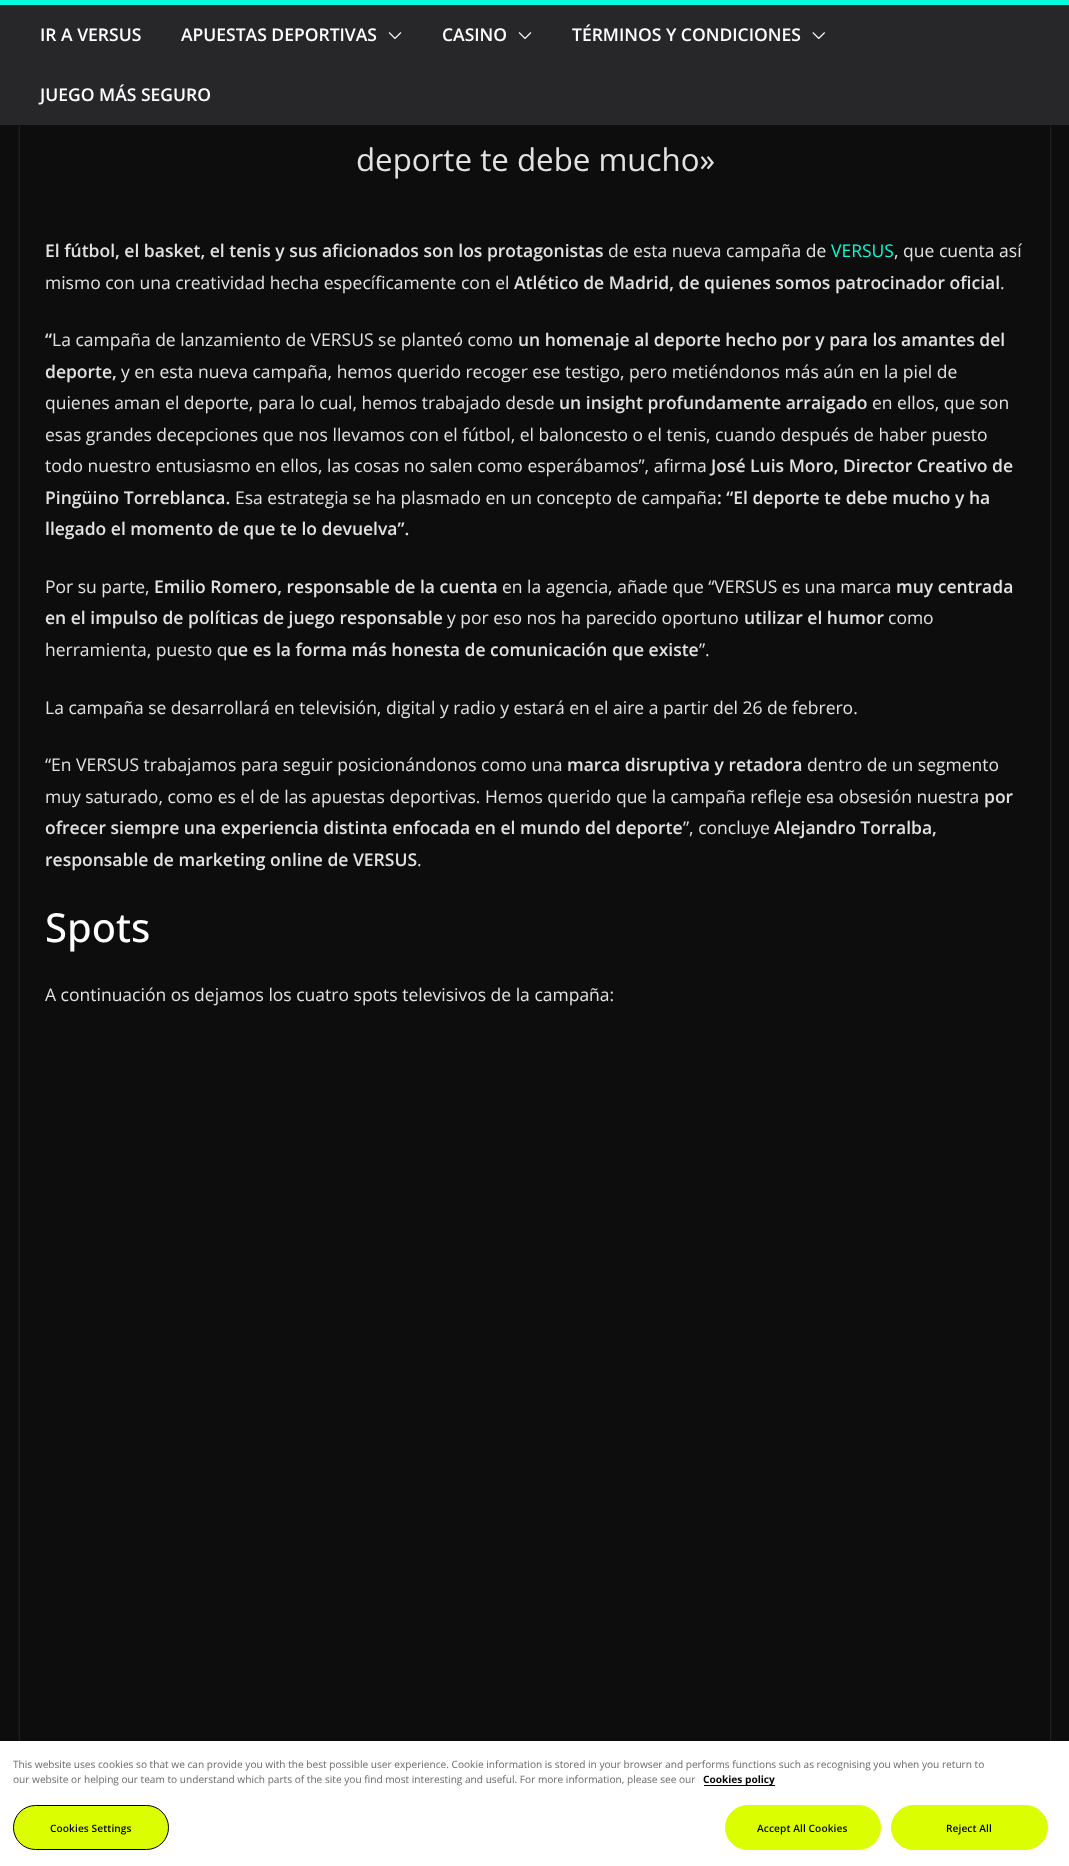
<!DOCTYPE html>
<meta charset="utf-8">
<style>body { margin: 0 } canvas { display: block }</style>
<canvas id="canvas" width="1069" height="1866"></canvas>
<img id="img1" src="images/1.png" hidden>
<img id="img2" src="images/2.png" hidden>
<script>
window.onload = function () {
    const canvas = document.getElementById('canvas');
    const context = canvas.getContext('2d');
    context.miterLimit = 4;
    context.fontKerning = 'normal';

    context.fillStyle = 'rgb(13, 13, 13)';
    context.fillRect(0, 0, 1069, 1866);
    context.save();
    context.beginPath();
    context.moveTo(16, 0);
    context.lineTo(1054, 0);
    context.lineTo(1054, 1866);
    context.lineTo(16, 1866);
    context.closePath();
    context.moveTo(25, -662);
    context.lineTo(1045, -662);
    context.bezierCurveTo(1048, -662, 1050, -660, 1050, -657);
    context.lineTo(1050, 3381);
    context.bezierCurveTo(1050, 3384, 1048, 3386, 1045, 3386);
    context.lineTo(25, 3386);
    context.bezierCurveTo(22, 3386, 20, 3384, 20, 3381);
    context.lineTo(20, -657);
    context.bezierCurveTo(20, -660, 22, -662, 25, -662);
    context.closePath();
    context.clip('evenodd');
    context.fillStyle = 'rgba(255, 255, 255, 0.24)';
    context.filter = 'blur(1px)';
    context.beginPath();
    context.roundRect(20, -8, 1030, 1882, 5);
    context.fill();
    context.filter = 'none';
    context.restore();
    context.fillStyle = 'rgb(39, 39, 42)';
    context.fillRect(0, 5, 1069, 120);
    context.fillStyle = 'rgb(6, 255, 216)';
    context.fillRect(0, 0, 1069, 5);
    context.drawImage(document.getElementById('img1'), 388, 32, 14, 7);
    context.drawImage(document.getElementById('img1'), 518, 32, 14, 7);
    context.drawImage(document.getElementById('img2'), 812, 32, 13, 7);
    context.fillStyle = 'rgb(255, 255, 255)';
    context.fillRect(0, 1741, 1069, 125);
    context.fillStyle = 'rgb(0, 0, 0)';
    context.fillRect(704, 1785, 71, 1);
    context.fillStyle = 'rgb(219, 255, 0)';
    context.beginPath();
    context.roundRect(13.5, 1805.5, 155, 44, 22);
    context.fill();
    context.strokeStyle = 'rgb(0, 0, 0)';
    context.stroke();
    context.beginPath();
    context.roundRect(725.5, 1805.5, 155, 44, 22);
    context.fill();
    context.strokeStyle = 'rgb(219, 255, 0)';
    context.stroke();
    context.beginPath();
    context.roundRect(891.5, 1805.5, 156, 44, 22);
    context.fill();
    context.stroke();
    context.font = '600 17.5px Open Sans';
    context.fillStyle = 'rgb(255, 255, 255)';
    context.fillText('IR A VERSUS', 40, 41);
    context.fillText('APUESTAS DEPORTIVAS', 181, 41);
    context.fillText('CASINO', 442, 41);
    context.fillText('TÉRMINOS Y CONDICIONES', 572, 41);
    context.fillText('JUEGO MÁS SEGURO', 40, 101);
    context.font = '31.25px Open Sans';
    context.fillStyle = 'rgb(227, 226, 226)';
    context.fillText('deporte te debe mucho»', 356, 171);
    context.font = '600 17.5px Open Sans';
    context.fillText('El fútbol, el basket, el tenis y sus aficionados son los protagonistas', 45, 257);
    context.font = '17.5px Open Sans';
    context.fillText('de esta nueva campaña de', 608, 257);
    context.fillStyle = 'rgb(6, 255, 216)';
    context.fillText('VERSUS', 831, 257);
    context.fillStyle = 'rgb(227, 226, 226)';
    context.fillText(', que cuenta así', 894, 257);
    context.fillText('mismo con una creatividad hecha específicamente con el', 45, 289);
    context.font = '600 17.5px Open Sans';
    context.fillText('Atlético de Madrid, de quienes somos patrocinador oficial', 514, 289);
    context.font = '17.5px Open Sans';
    context.fillText('.', 1000, 289);
    context.font = '600 17.5px Open Sans';
    context.fillText('“', 45, 346);
    context.font = '17.5px Open Sans';
    context.fillText('La campaña de lanzamiento de VERSUS se planteó como', 52, 346);
    context.font = '600 17.5px Open Sans';
    context.fillText('un homenaje al deporte hecho por y para los amantes del', 518, 346);
    context.fillText('deporte,', 45, 378);
    context.font = '17.5px Open Sans';
    context.fillText('y en esta nueva campaña, hemos querido recoger ese testigo, pero metiéndonos más aún en la piel de', 121, 378);
    context.fillText('quienes aman el deporte, para lo cual, hemos trabajado desde', 45, 409);
    context.font = '600 17.5px Open Sans';
    context.fillText('un insight profundamente arraigado', 559, 409);
    context.font = '17.5px Open Sans';
    context.fillText('en ellos, que son', 872, 409);
    context.fillText('esas grandes decepciones que nos llevamos con el fútbol, el baloncesto o el tenis, cuando después de haber puesto', 45, 441);
    context.fillText('todo nuestro entusiasmo en ellos, las cosas no salen como esperábamos”, afirma', 45, 472);
    context.font = '600 17.5px Open Sans';
    context.fillText('José Luis Moro, Director Creativo de', 711, 472);
    context.fillText('Pingüino Torreblanca.', 45, 504);
    context.font = '17.5px Open Sans';
    context.fillText('Esa estrategia se ha plasmado en un concepto de campaña', 235, 504);
    context.font = '600 17.5px Open Sans';
    context.fillText(': “El deporte te debe mucho y ha', 717, 504);
    context.fillText('llegado el momento de que te lo devuelva”.', 45, 535);
    context.font = '17.5px Open Sans';
    context.fillText('Por su parte,', 45, 593);
    context.font = '600 17.5px Open Sans';
    context.fillText('Emilio Romero, responsable de la cuenta', 154, 593);
    context.font = '17.5px Open Sans';
    context.fillText('en la agencia, añade que “VERSUS es una marca', 502, 593);
    context.font = '600 17.5px Open Sans';
    context.fillText('muy centrada', 896, 593);
    context.fillText('en el impulso de políticas de juego responsable', 45, 624);
    context.font = '17.5px Open Sans';
    context.fillText('y por eso nos ha parecido oportuno', 447, 624);
    context.font = '600 17.5px Open Sans';
    context.fillText('utilizar el humor', 744, 624);
    context.font = '17.5px Open Sans';
    context.fillText('como', 888, 624);
    context.fillText('herramienta, puesto q', 45, 656);
    context.font = '600 17.5px Open Sans';
    context.fillText('ue es la forma más honesta de comunicación que existe', 227, 656);
    context.font = '17.5px Open Sans';
    context.fillText('”.', 699, 656);
    context.fillText('La campaña se desarrollará en televisión, digital y radio y estará en el aire a partir del 26 de febrero.', 45, 714);
    context.fillText('“En VERSUS trabajamos para seguir posicionándonos como una', 45, 771);
    context.font = '600 17.5px Open Sans';
    context.fillText('marca disruptiva y retadora', 567, 771);
    context.font = '17.5px Open Sans';
    context.fillText('dentro de un segmento', 807, 771);
    context.fillText('muy saturado, como es el de las apuestas deportivas. Hemos querido que la campaña refleje esa obsesión nuestra', 45, 803);
    context.font = '600 17.5px Open Sans';
    context.fillText('por', 984, 803);
    context.fillText('ofrecer siempre una experiencia distinta enfocada en el mundo del deporte', 45, 834);
    context.font = '17.5px Open Sans';
    context.fillText('”, concluye', 683, 834);
    context.font = '600 17.5px Open Sans';
    context.fillText('Alejandro Torralba,', 774, 834);
    context.fillText('responsable de marketing online de VERSUS', 45, 866);
    context.font = '17.5px Open Sans';
    context.fillText('.', 417, 866);
    context.font = '500 40px Open Sans';
    context.fillStyle = 'rgb(255, 255, 255)';
    context.fillText('Spots', 45, 942);
    context.font = '17.5px Open Sans';
    context.fillStyle = 'rgb(227, 226, 226)';
    context.fillText('A continuación os dejamos los cuatro spots televisivos de la campaña:', 45, 1001);
    context.font = '10.15px Open Sans';
    context.fillStyle = 'rgb(105, 105, 105)';
    context.fillText('This website uses cookies so that we can provide you with the best possible user experience. Cookie information is stored in your browser and performs functions such as recognising you when you return to', 13, 1768);
    context.fillText('our website or helping our team to understand which parts of the site you find most interesting and useful. For more information, please see our', 13, 1783);
    context.font = 'bold 10.15px Open Sans';
    context.fillStyle = 'rgb(0, 0, 0)';
    context.fillText('Cookies policy', 703, 1783);
    context.letterSpacing = '0.1px';
    context.font = '600 10.15px Open Sans';
    context.fillText('Cookies Settings', 50, 1832);
    context.fillText('Accept All Cookies', 757, 1832);
    context.fillText('Reject All', 946, 1832);
};
</script>
